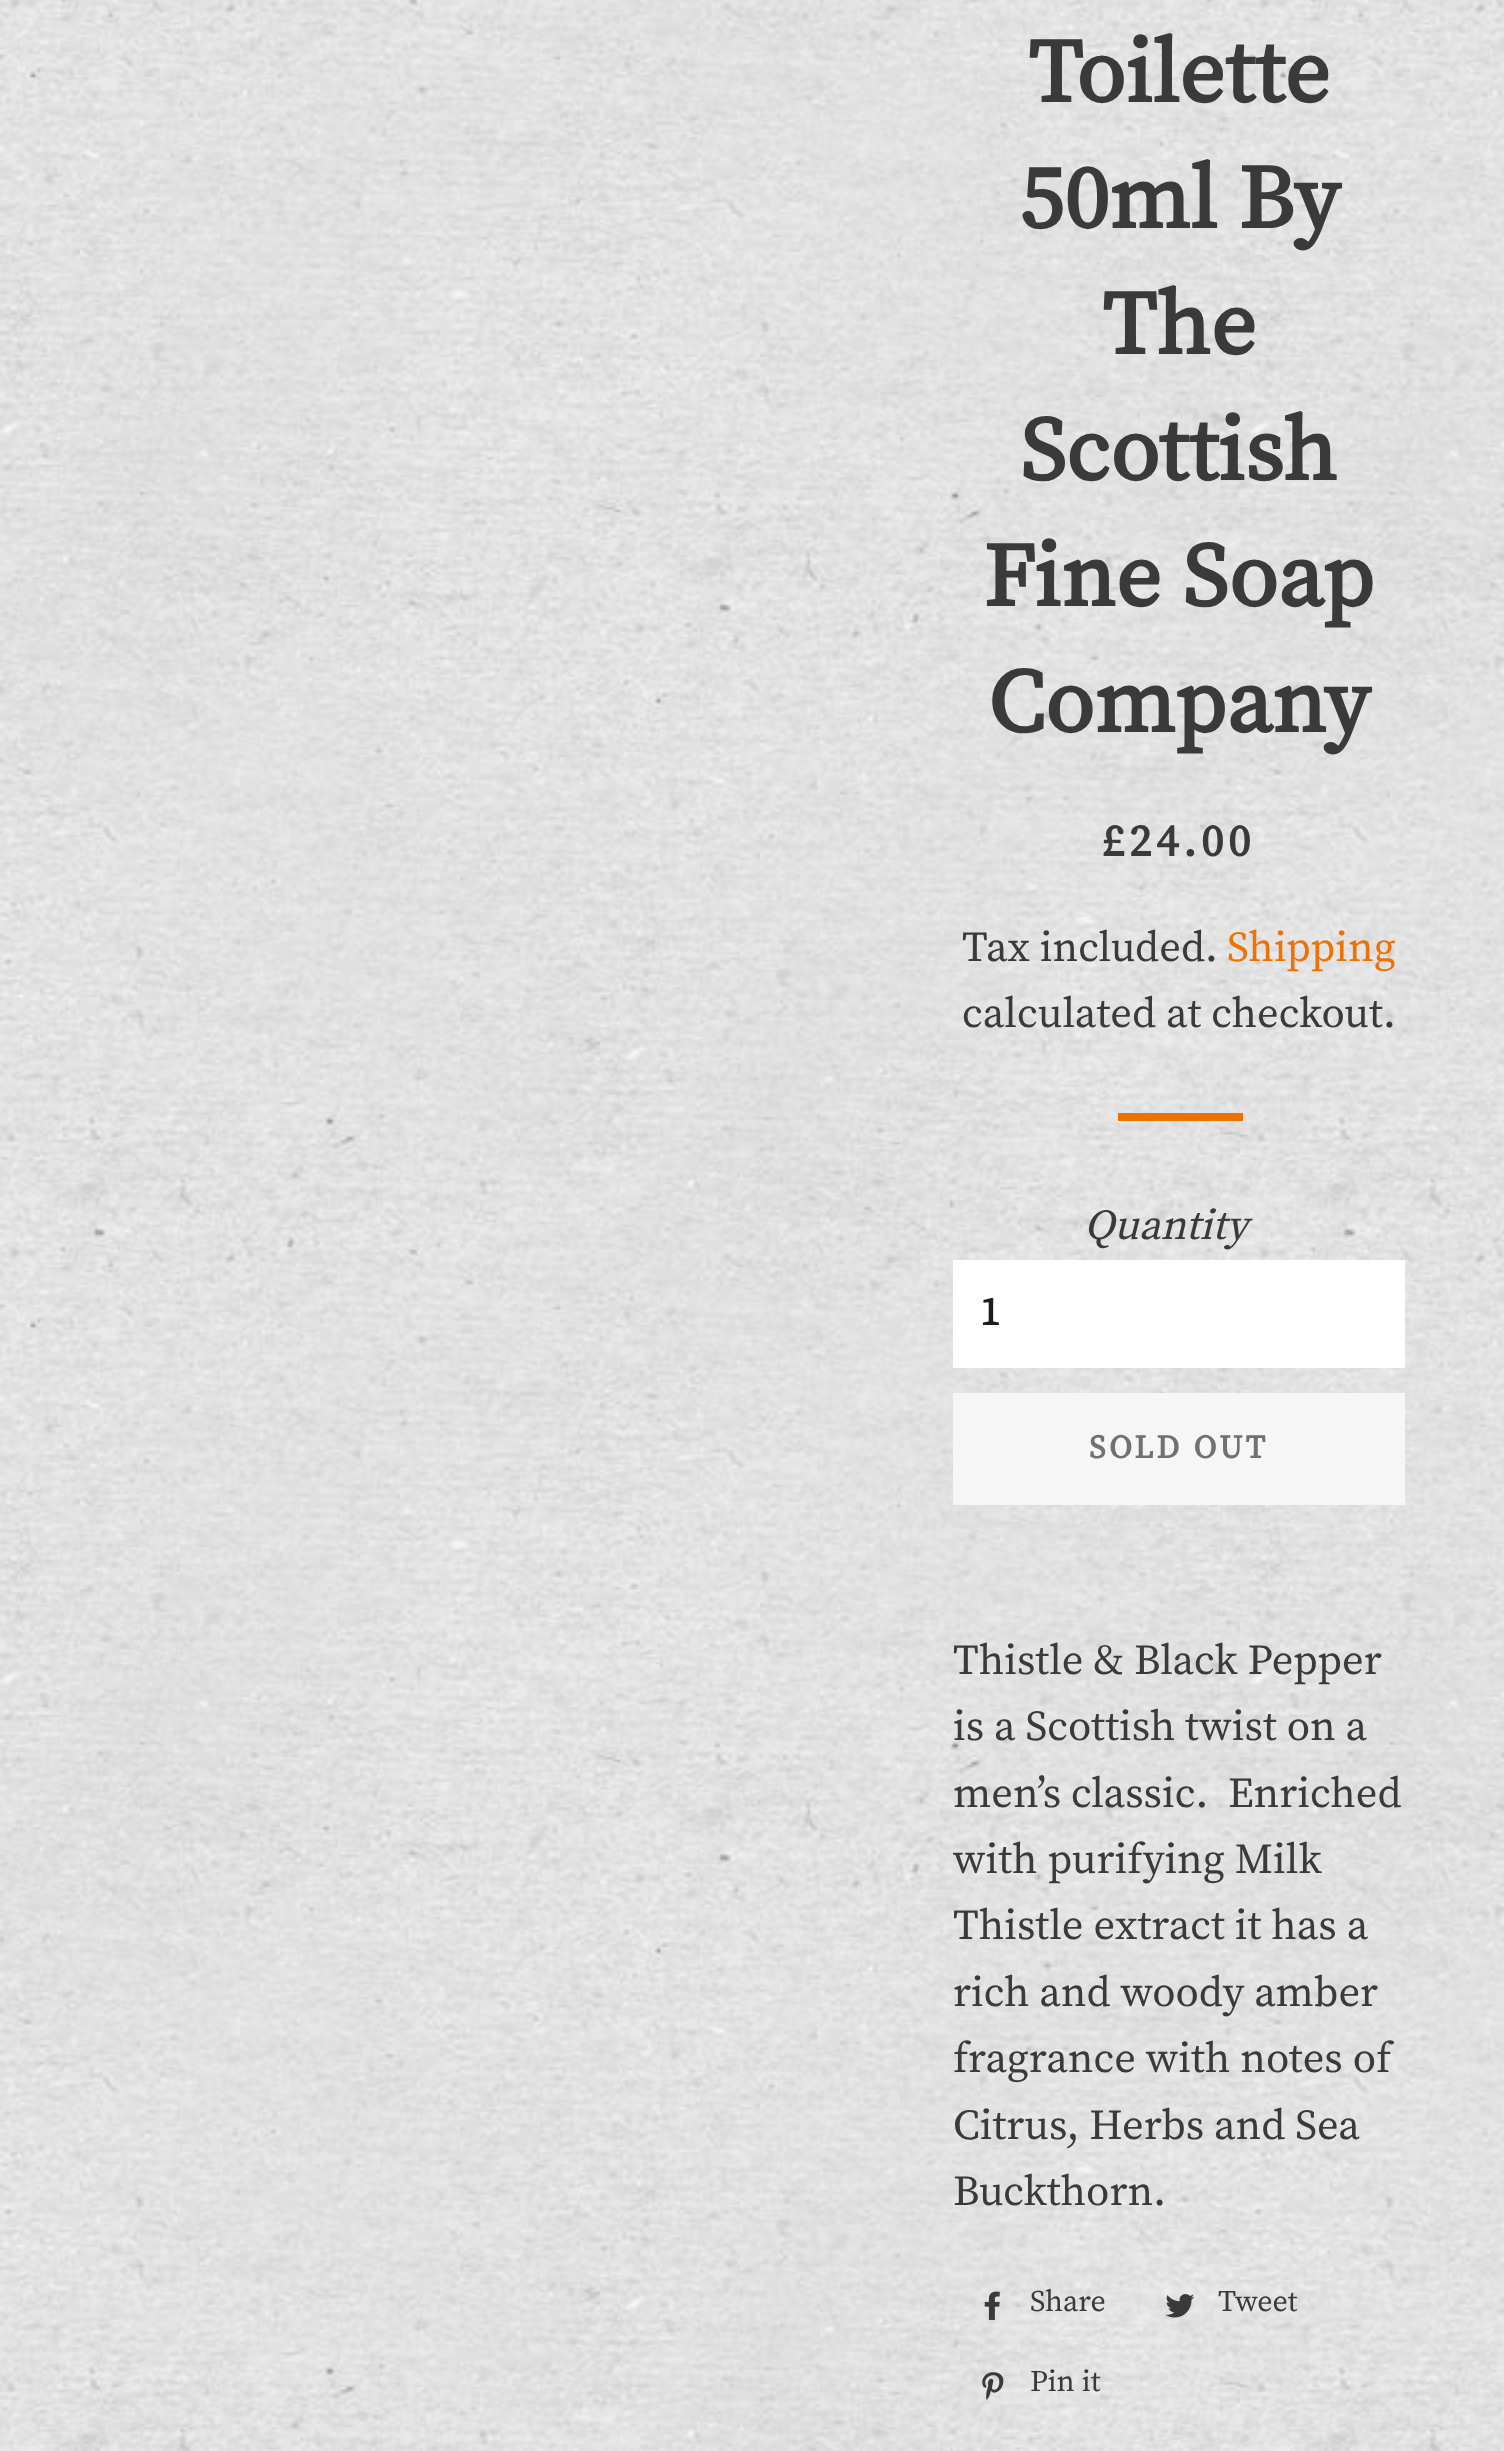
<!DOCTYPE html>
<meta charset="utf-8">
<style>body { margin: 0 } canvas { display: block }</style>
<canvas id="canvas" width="1504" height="2451"></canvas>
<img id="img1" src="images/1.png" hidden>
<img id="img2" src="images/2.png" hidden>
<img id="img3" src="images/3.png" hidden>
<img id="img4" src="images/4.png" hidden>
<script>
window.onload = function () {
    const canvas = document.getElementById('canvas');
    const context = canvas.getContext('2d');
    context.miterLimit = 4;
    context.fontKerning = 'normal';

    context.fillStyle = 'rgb(255, 255, 255)';
    context.fillRect(0, 0, 1504, 2451);
    context.drawImage(document.getElementById('img1'), 0, 0, 1504, 2451);
    context.fillStyle = 'rgb(238, 113, 3)';
    context.fillRect(1118, 1113, 125, 8);
    context.fillStyle = 'rgb(255, 255, 255)';
    context.fillRect(953, 1260, 452, 108);
    context.fillStyle = 'rgb(246, 246, 246)';
    context.fillRect(953, 1393, 452, 112);
    context.drawImage(document.getElementById('img2'), 984, 2291, 16, 29);
    context.drawImage(document.getElementById('img3'), 1165, 2294, 30, 24);
    context.drawImage(document.getElementById('img4'), 982, 2372, 22, 28);
    context.font = 'bold 90px Source Serif Pro';
    context.fillStyle = 'rgb(57, 59, 59)';
    context.fillText('Toilette', 1028, 102);
    context.fillText('50ml By', 1019, 228);
    context.fillText('The', 1102, 354);
    context.fillText('Scottish', 1020, 480);
    context.fillText('Fine Soap', 983, 606);
    context.fillText('Company', 988, 732);
    context.letterSpacing = '4.5px';
    context.font = 'bold 45px Source Serif Pro';
    context.fillText('£24.00', 1102, 856);
    context.letterSpacing = '0px';
    context.font = '42.5px Source Serif Pro';
    context.fillText('Tax included.', 962, 961);
    context.fillStyle = 'rgb(238, 113, 3)';
    context.fillText('Shipping', 1227, 961);
    context.fillStyle = 'rgb(57, 59, 59)';
    context.fillText('calculated at checkout.', 962, 1027);
    context.font = 'italic 42.5px Source Serif Pro';
    context.fillText('Quantity', 1084, 1239);
    context.letterSpacing = '4px';
    context.font = 'bold 40px Source Serif Pro';
    context.fillStyle = 'rgb(28, 29, 29)';
    context.fillText('1', 980, 1325);
    context.letterSpacing = '3.25px';
    context.font = 'bold 32.5px Source Serif Pro';
    context.fillStyle = 'rgb(113, 113, 113)';
    context.fillText('SOLD OUT', 1089, 1458);
    context.letterSpacing = '0px';
    context.font = '42.5px Source Serif Pro';
    context.fillStyle = 'rgb(57, 59, 59)';
    context.fillText('Thistle & Black Pepper', 953, 1674);
    context.fillText('is a Scottish twist on a', 953, 1740);
    context.fillText('men’s classic.  Enriched', 953, 1807);
    context.fillText('with purifying Milk', 953, 1873);
    context.fillText('Thistle extract it has a', 953, 1939);
    context.fillText('rich and woody amber', 953, 2006);
    context.fillText('fragrance with notes of', 953, 2072);
    context.fillText('Citrus, Herbs and Sea', 953, 2139);
    context.fillText('Buckthorn.', 953, 2205);
    context.font = '30px Source Serif Pro';
    context.fillText('Share', 1030, 2311);
    context.fillText('Tweet', 1218, 2311);
    context.fillText('Pin it', 1030, 2391);
};
</script>
